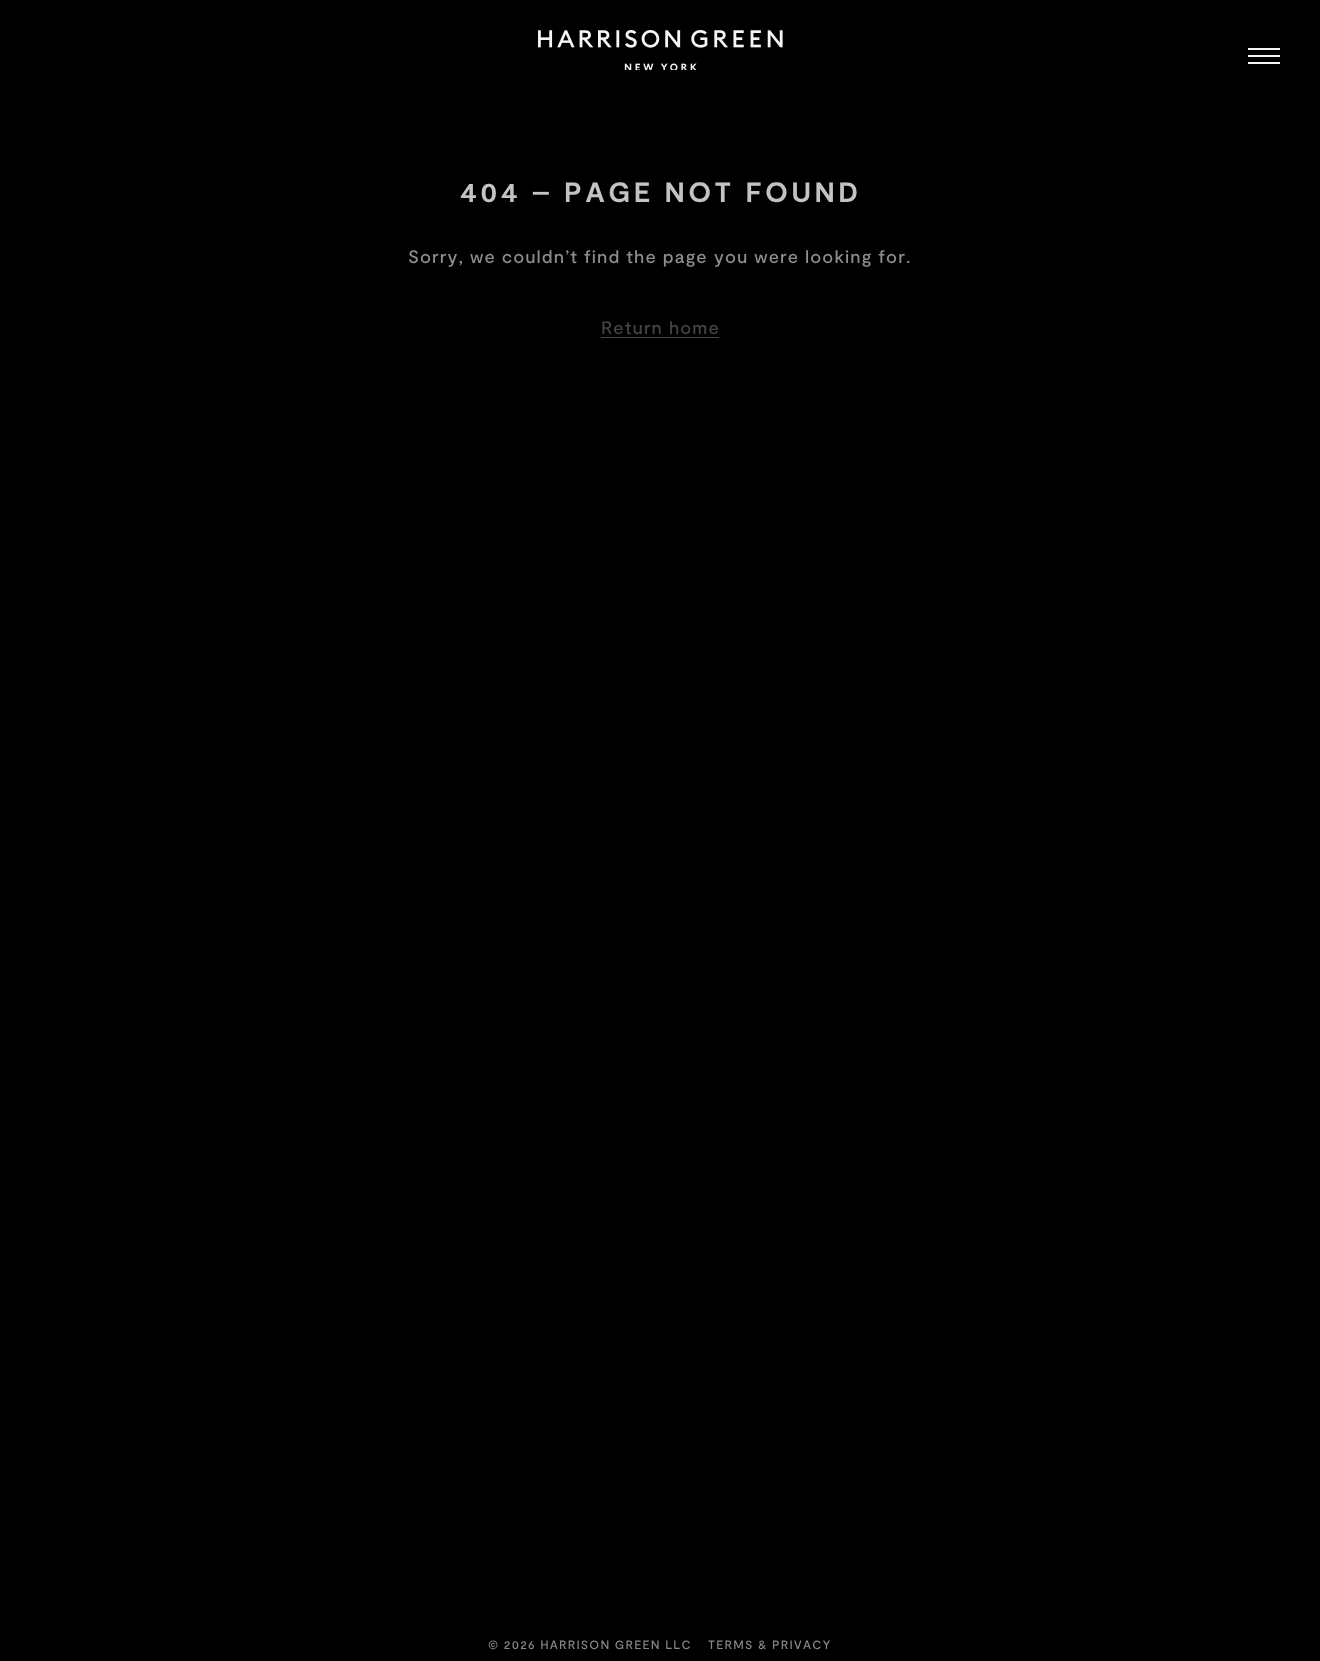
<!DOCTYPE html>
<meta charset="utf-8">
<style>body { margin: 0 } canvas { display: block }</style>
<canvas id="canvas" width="1320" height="1661"></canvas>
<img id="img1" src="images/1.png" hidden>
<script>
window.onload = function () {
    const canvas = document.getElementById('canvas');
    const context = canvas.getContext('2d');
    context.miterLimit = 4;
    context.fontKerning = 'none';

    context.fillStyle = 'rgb(0, 0, 0)';
    context.fillRect(0, 0, 1320, 1661);
    context.drawImage(document.getElementById('img1'), 538, 30, 245, 40);
    context.fillStyle = 'rgb(245, 245, 245)';
    context.fillRect(1248, 48, 32, 2);
    context.fillRect(1248, 55, 32, 2);
    context.fillRect(1248, 62, 32, 2);
    context.fillStyle = 'rgb(68, 68, 68)';
    context.fillRect(601, 337, 118, 1);
    context.letterSpacing = '3.4px';
    context.font = 'bold 28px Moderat';
    context.fillStyle = 'rgb(195, 195, 195)';
    context.fillText('404 – PAGE NOT FOUND', 460, 202);
    context.letterSpacing = '1.08px';
    context.font = '500 18px Moderat';
    context.fillStyle = 'rgb(141, 141, 141)';
    context.fillText('Sorry, we couldn’t find the page', 408, 263);
    context.fillText('you were looking for.', 714, 263);
    context.fillStyle = 'rgb(68, 68, 68)';
    context.fillText('Return home', 601, 334);
    context.letterSpacing = '1.2px';
    context.font = '500 12px Moderat';
    context.fillStyle = 'rgb(135, 135, 135)';
    context.fillText('© 2026 HARRISON GREEN LLC', 488, 1649);
    context.fillText('TERMS & PRIVACY', 708, 1649);
};
</script>
